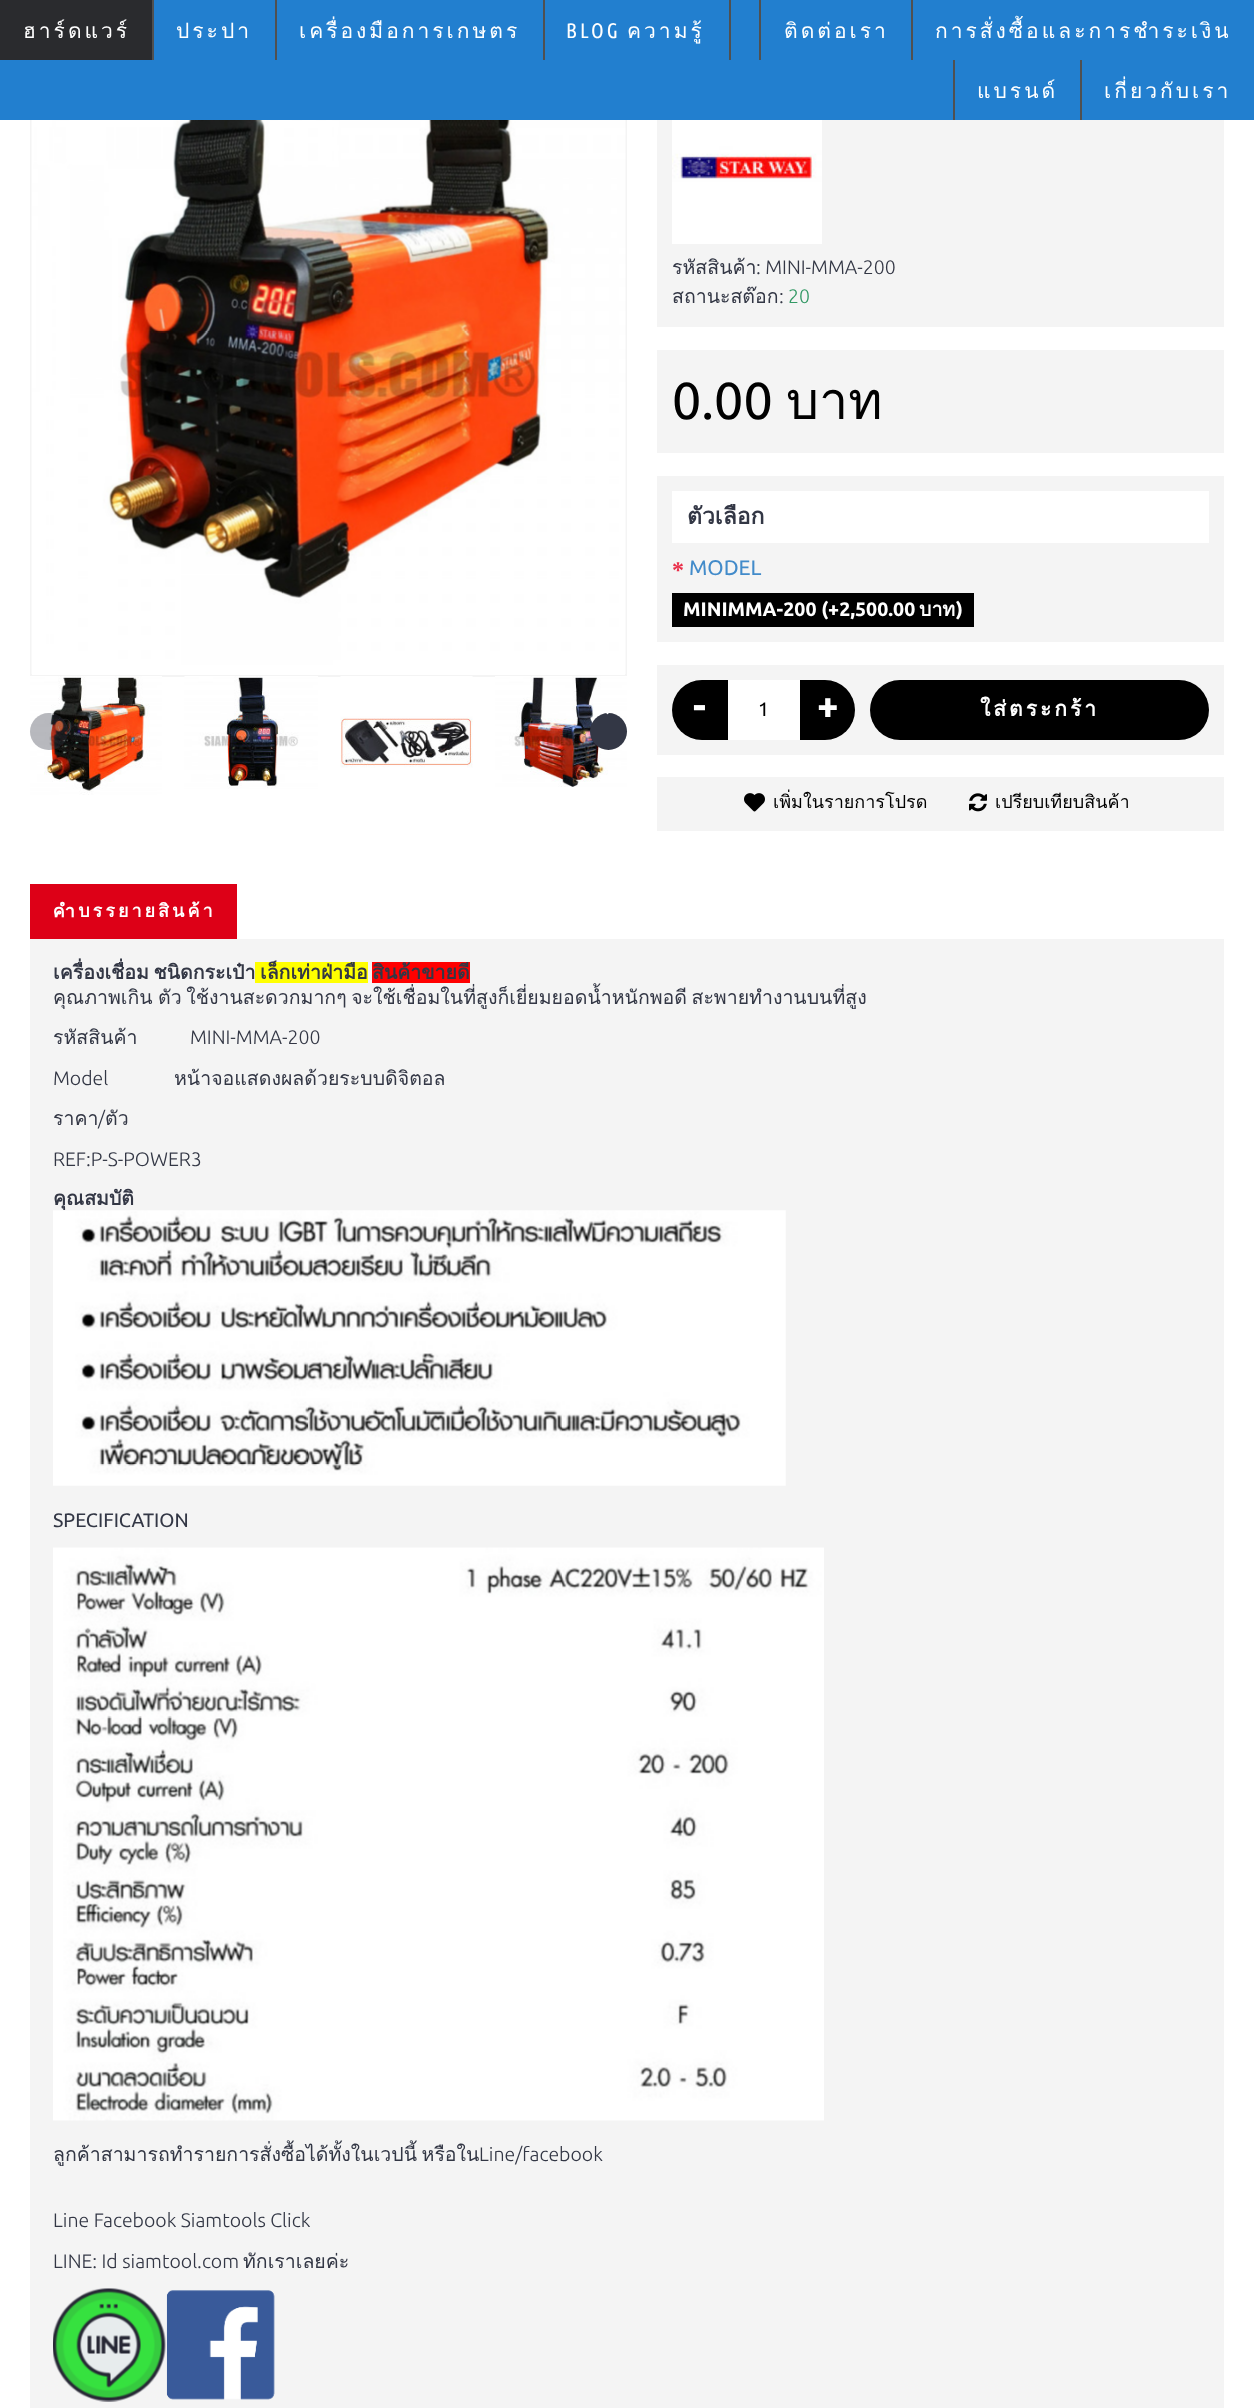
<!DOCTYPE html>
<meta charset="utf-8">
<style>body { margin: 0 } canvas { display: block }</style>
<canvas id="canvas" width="1254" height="2408"></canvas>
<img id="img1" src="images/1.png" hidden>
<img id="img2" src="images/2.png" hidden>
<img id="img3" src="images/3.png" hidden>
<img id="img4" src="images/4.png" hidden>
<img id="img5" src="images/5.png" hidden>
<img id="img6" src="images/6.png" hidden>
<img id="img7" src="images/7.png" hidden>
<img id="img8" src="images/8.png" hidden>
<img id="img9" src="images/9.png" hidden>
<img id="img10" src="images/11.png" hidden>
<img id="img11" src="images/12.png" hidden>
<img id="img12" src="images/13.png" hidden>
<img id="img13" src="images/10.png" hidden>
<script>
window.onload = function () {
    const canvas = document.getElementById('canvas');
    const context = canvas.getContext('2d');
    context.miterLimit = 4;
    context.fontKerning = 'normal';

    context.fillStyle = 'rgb(255, 255, 255)';
    context.fillRect(0, 0, 1254, 2408);
    context.strokeStyle = 'rgb(244, 244, 244)';
    context.lineWidth = 2;
    context.strokeRect(31, 81, 595, 595);
    context.fillStyle = 'rgb(34, 127, 207)';
    context.fillRect(0, 0, 1254, 120);
    context.fillStyle = 'rgb(42, 43, 46)';
    context.fillRect(0, 0, 152, 60);
    context.fillStyle = 'rgb(80, 80, 80)';
    context.fillRect(152, 0, 2, 60);
    context.fillRect(275, 0, 2, 60);
    context.fillRect(543, 0, 2, 60);
    context.fillRect(729, 0, 2, 60);
    context.fillRect(759, 0, 2, 60);
    context.fillRect(911, 0, 2, 60);
    context.fillRect(953, 60, 2, 60);
    context.fillRect(1080, 60, 2, 60);
    context.drawImage(document.getElementById('img1'), 31, 120, 595, 554);
    context.drawImage(document.getElementById('img2'), 30, 676, 132, 119);
    context.drawImage(document.getElementById('img3'), 184, 676, 134, 113);
    context.drawImage(document.getElementById('img4'), 340, 676, 133, 92);
    context.drawImage(document.getElementById('img5'), 495, 676, 132, 111);
    context.fillStyle = 'rgba(51, 55, 69, 0.35)';
    context.beginPath();
    context.roundRect(30, 713, 38, 37, 18.5);
    context.fill();
    context.fillStyle = 'rgba(255, 255, 255, 0.35)';
    context.fillRect(51, 712, 3, 3);
    context.fillStyle = 'rgb(51, 55, 69)';
    context.beginPath();
    context.arc(608.5, 731.5, 18.5, 0, 2 * Math.PI);
    context.fill();
    context.drawImage(document.getElementById('img6'), 606, 713, 3, 2);
    context.fillStyle = 'rgb(244, 244, 244)';
    context.fillRect(657, 120, 567, 207);
    context.drawImage(document.getElementById('img7'), 672, 120, 150, 124);
    context.fillRect(657, 350, 567, 103);
    context.fillRect(657, 476, 567, 166);
    context.fillStyle = 'rgb(255, 255, 255)';
    context.fillRect(672, 491, 537, 52);
    context.fillStyle = 'rgb(0, 0, 0)';
    context.fillRect(672, 593, 302, 34);
    context.fillStyle = 'rgb(244, 244, 244)';
    context.fillRect(657, 665, 567, 90);
    context.fillStyle = 'rgb(0, 0, 0)';
    context.beginPath();
    context.roundRect(672, 680, 56, 60, [30, 0, 0, 30]);
    context.fill();
    context.fillStyle = 'rgb(255, 255, 255)';
    context.fillRect(728, 680, 72, 60);
    context.fillStyle = 'rgb(0, 0, 0)';
    context.beginPath();
    context.roundRect(800, 680, 55, 60, [0, 30, 30, 0]);
    context.fill();
    context.beginPath();
    context.roundRect(870, 680, 339, 60, 30);
    context.fill();
    context.fillStyle = 'rgb(244, 244, 244)';
    context.fillRect(657, 777, 567, 54);
    context.drawImage(document.getElementById('img8'), 744, 793, 21, 19);
    context.drawImage(document.getElementById('img9'), 969, 793, 18, 19);
    context.fillStyle = 'rgb(221, 0, 23)';
    context.fillRect(30, 884, 207, 55);
    context.fillStyle = 'rgb(244, 244, 244)';
    context.fillRect(30, 939, 1194, 1469);
    context.fillStyle = 'rgb(255, 255, 0)';
    context.fillRect(255, 962, 113, 21);
    context.fillStyle = 'rgb(255, 0, 0)';
    context.fillRect(372, 962, 98, 21);
    context.drawImage(document.getElementById('img10'), 53, 1547, 771, 574);
    context.drawImage(document.getElementById('img11'), 53, 2288, 113, 114);
    context.drawImage(document.getElementById('img12'), 166, 2290, 109, 110);
    context.letterSpacing = '3px';
    context.font = '21px Loma';
    context.fillStyle = 'rgb(255, 255, 255)';
    context.fillText('ฮาร์ดแวร์', 23, 38);
    context.fillText('ประปา', 176, 38);
    context.fillText('เครื่องมือการเกษตร', 299, 38);
    context.font = '21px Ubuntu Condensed';
    context.fillText('BLOG', 566, 38);
    context.font = '21px Loma';
    context.fillText('ความรู้', 627, 38);
    context.fillText('ติดต่อเรา', 784, 38);
    context.fillText('การสั่งซื้อและการชำระเงิน', 935, 38);
    context.fillText('แบรนด์', 977, 98);
    context.fillText('เกี่ยวกับเรา', 1104, 98);
    context.letterSpacing = '0px';
    context.font = '19.5px Loma';
    context.fillStyle = 'rgb(51, 55, 69)';
    context.fillText('รหัสสินค้า', 672, 274);
    context.font = '300 19.5px Ubuntu';
    context.fillText(': MINI-MMA-200', 756, 274);
    context.font = '19.5px Loma';
    context.fillText('สถานะสต๊อก', 672, 303);
    context.font = '300 19.5px Ubuntu';
    context.fillText(':', 779, 303);
    context.fillStyle = 'rgb(51, 153, 101)';
    context.fillText('20', 788, 303);
    context.font = '52px Ubuntu';
    context.fillStyle = 'rgb(0, 0, 0)';
    context.fillText('0.00', 672, 419);
    context.font = '52px Loma';
    context.fillText('บาท', 786, 419);
    context.font = 'bold 23px Loma';
    context.fillStyle = 'rgb(51, 55, 69)';
    context.fillText('ตัวเลือก', 687, 524);
    context.font = 'bold 24px Liberation Serif';
    context.fillStyle = 'rgb(234, 46, 73)';
    context.fillText('*', 672, 578);
    context.font = '21px Ubuntu';
    context.fillStyle = 'rgb(66, 139, 202)';
    context.fillText('MODEL', 689, 575);
    context.font = 'bold 19.5px Ubuntu';
    context.fillStyle = 'rgb(255, 255, 255)';
    context.fillText('MINIMMA-200 (+2,500.00', 683, 616);
    context.font = 'bold 19.5px Loma';
    context.fillText('บาท', 919, 616);
    context.font = 'bold 19.5px Ubuntu';
    context.fillText(')', 956, 616);
    context.font = 'bold 38px Ubuntu';
    context.fillText('-', 693, 719);
    context.font = '19.5px Ubuntu';
    context.fillStyle = 'rgb(0, 0, 0)';
    context.fillText('1', 758, 716);
    context.font = 'bold 38px Ubuntu';
    context.fillStyle = 'rgb(255, 255, 255)';
    context.fillText('+', 817, 719);
    context.letterSpacing = '3px';
    context.font = 'bold 21px Loma';
    context.fillText('ใส่ตระกร้า', 980, 716);
    context.letterSpacing = '0px';
    context.font = '18px Loma';
    context.fillStyle = 'rgb(0, 0, 0)';
    context.fillText('เพิ่มในรายการโปรด', 773, 808);
    context.fillText('เปรียบเทียบสินค้า', 995, 808);
    context.letterSpacing = '3px';
    context.font = 'bold 18px Loma';
    context.fillStyle = 'rgb(255, 255, 255)';
    context.fillText('คำบรรยายสินค้า', 53, 917);
    context.letterSpacing = '0px';
    context.wordSpacing = '-2px';
    context.font = 'bold 19.5px Loma';
    context.fillStyle = 'rgb(51, 55, 69)';
    context.fillText('เครื่องเชื่อม ชนิดกระเป๋า', 53, 979);
    context.wordSpacing = '0px';
    context.fillText('เล็กเท่าฝ่ามือ', 260, 979);
    context.fillText('สินค้าขายดี', 372, 979);
    context.font = '19.5px Loma';
    context.fillText('คุณภาพเกิน', 53, 1004);
    context.wordSpacing = '-2px';
    context.fillText('ตัว ใช้งานสะดวกมากๆ จะใช้เชื่อมในที่สูงก็เยี่ยมยอดน้ำหนักพอดี สะพายทำงานบนที่สูง', 158, 1004);
    context.wordSpacing = '0px';
    context.fillText('รหัสสินค้า', 53, 1044);
    context.font = '300 19.5px Ubuntu';
    context.fillText('MINI-MMA-200', 190, 1044);
    context.fillText('Model', 53, 1085);
    context.font = '19.5px Loma';
    context.fillText('หน้าจอแสดงผลด้วยระบบดิจิตอล', 174, 1085);
    context.font = '300 19.5px Ubuntu';
    context.fillText('/', 98, 1125);
    context.font = '19.5px Loma';
    context.fillText('ราคา', 53, 1125);
    context.fillText('ตัว', 105, 1125);
    context.font = '300 19.5px Ubuntu';
    context.fillText('REF:P-S-POWER3', 53, 1166);
    context.font = 'bold 19.5px Loma';
    context.fillText('คุณสมบัติ', 53, 1205);
    context.drawImage(document.getElementById('img13'), 53, 1210, 733, 276);
    context.font = '19.5px Ubuntu';
    context.fillText('SPECIFICATION', 53, 1527);
    context.wordSpacing = '-2px';
    context.font = '19.5px Loma';
    context.fillText('ลูกค้าสามารถทำรายการสั่งซื้อได้ทั้งในเวปนี้ หรือใน', 53, 2161);
    context.wordSpacing = '0px';
    context.font = '300 19.5px Ubuntu';
    context.fillText('Line/facebook', 479, 2161);
    context.fillText('Line Facebook Siamtools Click', 53, 2227);
    context.fillText('LINE: Id siamtool.com', 53, 2268);
    context.font = '19.5px Loma';
    context.fillText('ทักเราเลยค่ะ', 243, 2268);
};
</script>
